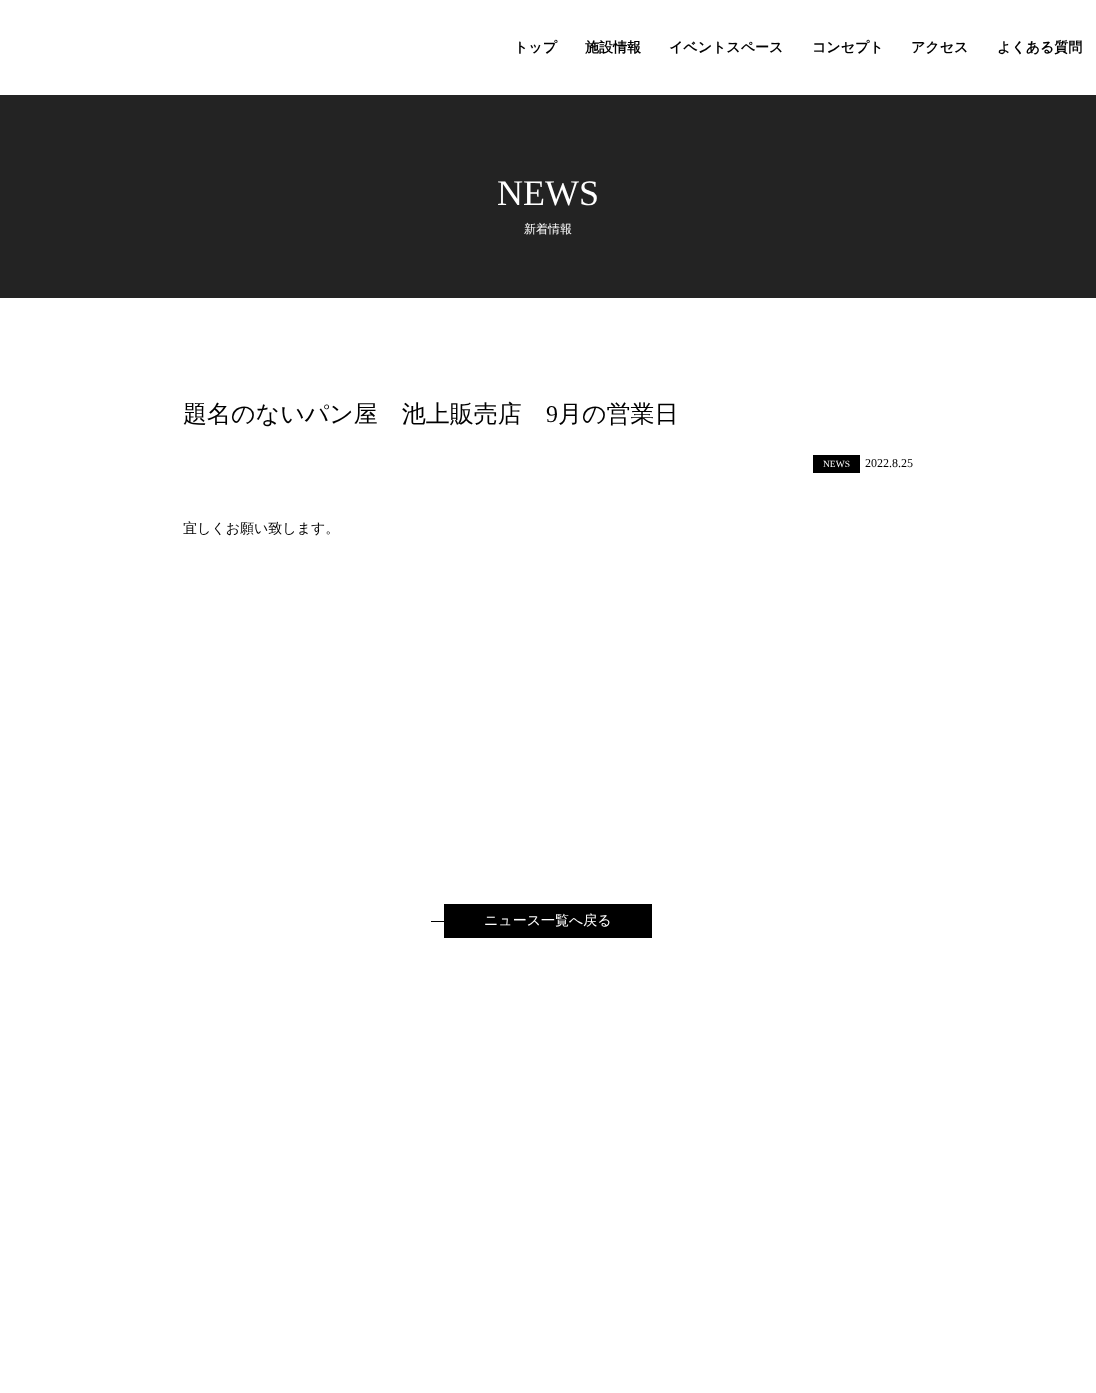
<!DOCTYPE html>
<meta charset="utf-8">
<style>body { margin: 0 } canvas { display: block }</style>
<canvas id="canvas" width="1096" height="1393"></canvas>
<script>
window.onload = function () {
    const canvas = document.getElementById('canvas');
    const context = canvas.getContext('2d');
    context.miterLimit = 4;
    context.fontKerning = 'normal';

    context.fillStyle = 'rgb(255, 255, 255)';
    context.fillRect(0, 0, 1096, 1393);
    context.fillStyle = 'rgb(35, 35, 35)';
    context.fillRect(0, 95, 1096, 203);
    context.fillStyle = 'rgb(0, 0, 0)';
    context.fillRect(813, 455, 47, 18);
    context.fillRect(444, 904, 208, 34);
    context.fillRect(431, 921, 13, 1);
    context.font = 'bold 14px WenQuanYi Zen Hei';
    context.fillText('トップ', 514, 52);
    context.fillText('施設情報', 585, 52);
    context.fillText('イベントスペース', 669, 52);
    context.fillText('コンセプト', 812, 52);
    context.fillText('アクセス', 911, 52);
    context.fillText('よくある質問', 997, 52);
    context.font = '36px Liberation Serif';
    context.fillStyle = 'rgb(255, 255, 255)';
    context.fillText('NEWS', 497, 205);
    context.font = '500 12px WenQuanYi Zen Hei';
    context.fillText('新着情報', 524, 233);
    context.font = '500 24px WenQuanYi Zen Hei';
    context.fillStyle = 'rgb(0, 0, 0)';
    context.fillText('題名のないパン屋　池上販売店', 183, 422);
    context.font = '24px Liberation Serif';
    context.fillText('9', 546, 422);
    context.font = '500 24px WenQuanYi Zen Hei';
    context.fillText('月の営業日', 558, 422);
    context.font = '9.5px Liberation Serif';
    context.fillStyle = 'rgb(255, 255, 255)';
    context.fillText('NEWS', 823, 467);
    context.font = '12px Liberation Serif';
    context.fillStyle = 'rgb(0, 0, 0)';
    context.fillText('2022.8.25', 865, 467);
    context.font = '500 14px WenQuanYi Zen Hei';
    context.fillText('宜しくお願い致します。', 183, 533);
    context.fillStyle = 'rgb(255, 255, 255)';
    context.fillText('ニュース一覧へ戻る', 484, 925);
};
</script>
